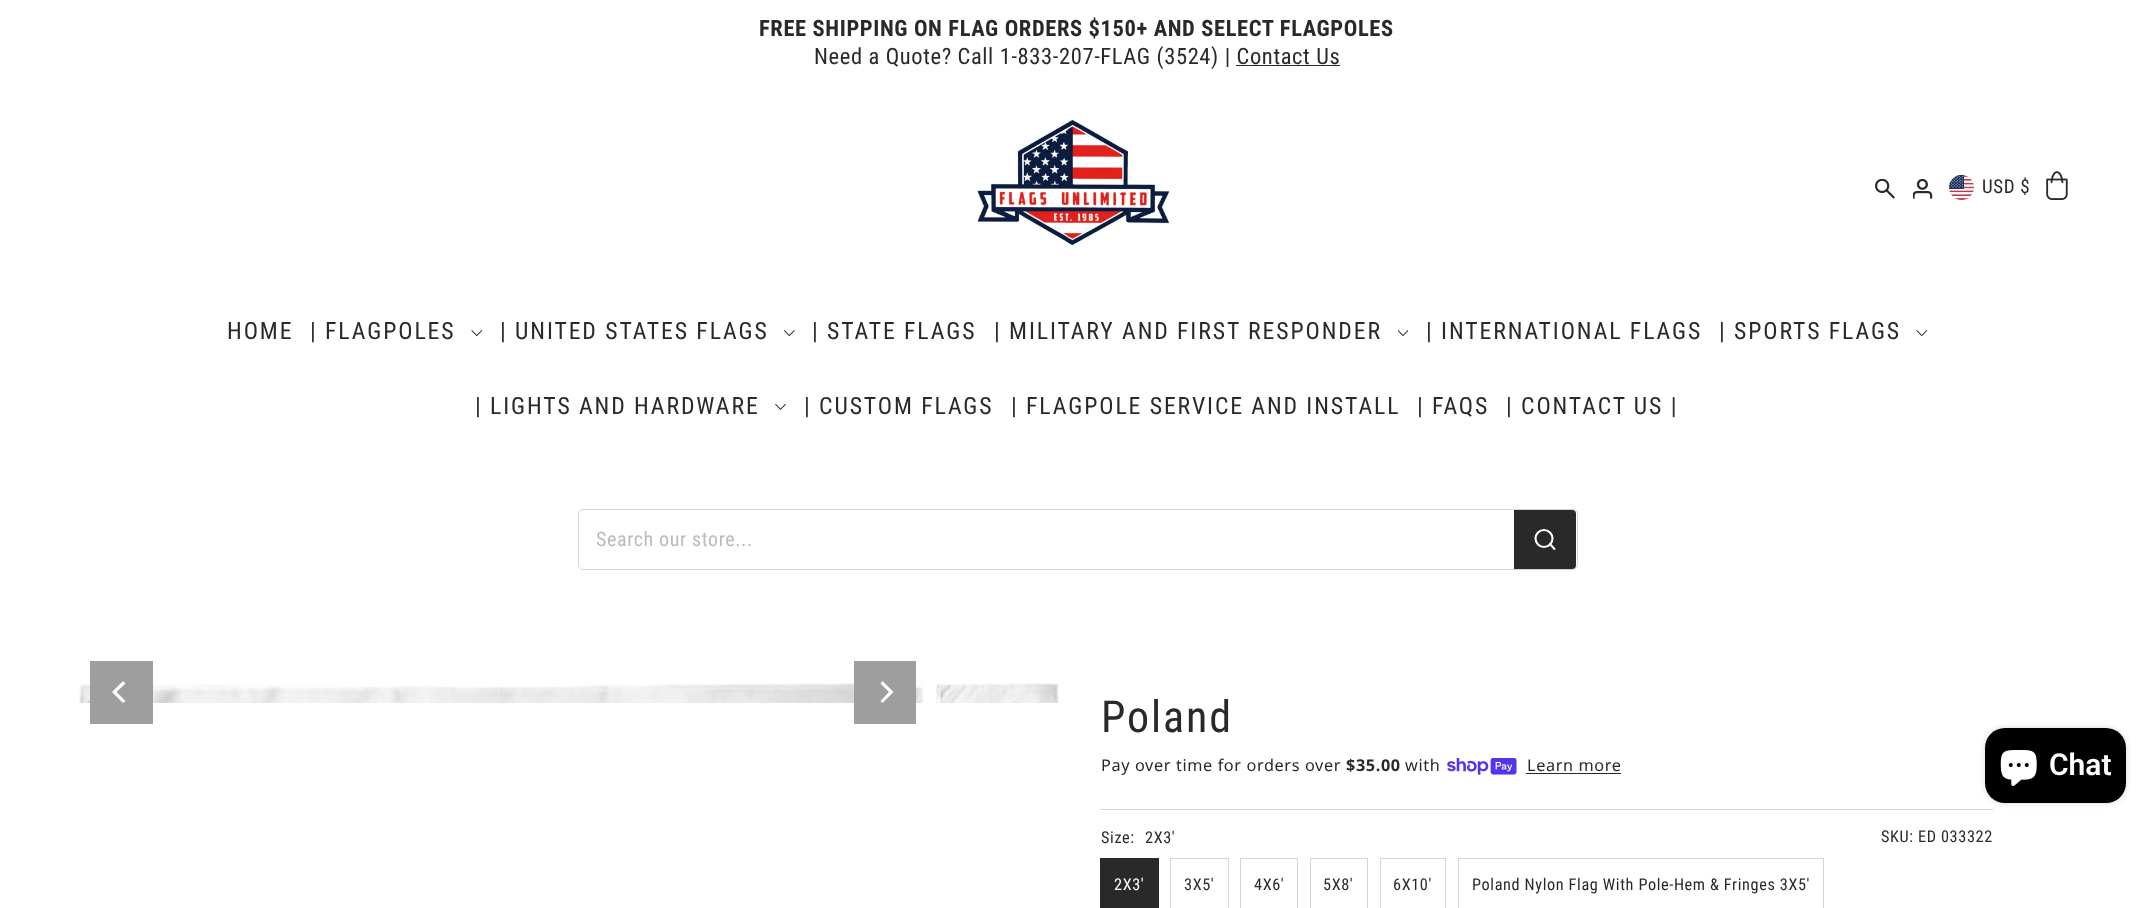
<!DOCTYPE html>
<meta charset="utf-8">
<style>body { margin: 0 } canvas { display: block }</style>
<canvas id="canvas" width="2153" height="908"></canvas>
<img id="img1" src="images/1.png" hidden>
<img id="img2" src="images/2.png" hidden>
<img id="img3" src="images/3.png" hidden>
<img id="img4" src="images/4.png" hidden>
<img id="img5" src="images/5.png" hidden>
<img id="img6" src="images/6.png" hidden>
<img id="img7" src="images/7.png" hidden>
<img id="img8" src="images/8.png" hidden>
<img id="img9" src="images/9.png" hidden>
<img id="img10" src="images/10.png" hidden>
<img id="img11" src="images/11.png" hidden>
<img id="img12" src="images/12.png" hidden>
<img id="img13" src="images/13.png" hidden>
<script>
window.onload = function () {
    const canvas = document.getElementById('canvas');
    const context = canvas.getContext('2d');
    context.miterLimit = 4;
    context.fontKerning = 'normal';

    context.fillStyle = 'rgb(255, 255, 255)';
    context.fillRect(0, 0, 2153, 908);
    context.fillStyle = 'rgb(41, 41, 41)';
    context.fillRect(1236, 65, 104, 1);
    context.drawImage(document.getElementById('img1'), 977, 119, 193, 126);
    context.drawImage(document.getElementById('img2'), 1875, 179, 20, 20);
    context.drawImage(document.getElementById('img3'), 1913, 179, 20, 20);
    context.drawImage(document.getElementById('img4'), 1949, 175, 25, 25);
    context.drawImage(document.getElementById('img5'), 2046, 171, 22, 29);
    context.drawImage(document.getElementById('img6'), 471, 330, 12, 6);
    context.drawImage(document.getElementById('img7'), 784, 330, 11, 6);
    context.drawImage(document.getElementById('img8'), 1398, 330, 10, 6);
    context.drawImage(document.getElementById('img6'), 1916, 330, 12, 6);
    context.drawImage(document.getElementById('img9'), 775, 404, 11, 6);
    context.beginPath();
    context.roundRect(578.5, 509.5, 999, 60, 4.5);
    context.strokeStyle = 'rgb(213, 213, 213)';
    context.stroke();
    context.beginPath();
    context.roundRect(1514, 510, 62, 59, [0, 4, 4, 0]);
    context.fill();
    context.beginPath();
    context.arc(1544, 538.5, 8.5, 0, 2 * Math.PI);
    context.strokeStyle = 'rgb(255, 255, 255)';
    context.lineWidth = 2.1;
    context.stroke();
    context.beginPath();
    context.moveTo(1554.5, 549);
    context.lineTo(1550, 544);
    context.lineCap = 'round';
    context.lineJoin = 'round';
    context.stroke();
    context.drawImage(document.getElementById('img10'), 79, 683, 845, 20);
    context.fillStyle = 'rgb(158, 158, 158)';
    context.fillRect(90, 661, 63, 63);
    context.fillStyle = 'rgb(255, 255, 255)';
    context.beginPath();
    context.moveTo(112, 692);
    context.lineTo(123, 703);
    context.lineTo(125.5, 701);
    context.lineTo(116.5, 692);
    context.lineTo(125.5, 683.5);
    context.lineTo(123, 681);
    context.closePath();
    context.fill();
    context.fillStyle = 'rgb(158, 158, 158)';
    context.fillRect(854, 661, 62, 63);
    context.fillStyle = 'rgb(255, 255, 255)';
    context.beginPath();
    context.moveTo(893.5, 692);
    context.lineTo(882.5, 681);
    context.lineTo(880.5, 683.5);
    context.lineTo(889, 692);
    context.lineTo(880.5, 701);
    context.lineTo(882.5, 703);
    context.closePath();
    context.fill();
    context.drawImage(document.getElementById('img11'), 936, 683, 123, 20);
    context.drawImage(document.getElementById('img12'), 1447, 758, 70, 17);
    context.fillStyle = 'rgb(41, 41, 41)';
    context.fillRect(1526, 773, 95, 1);
    context.fillStyle = 'rgb(213, 213, 213)';
    context.fillRect(1100, 809, 893, 1);
    context.fillStyle = 'rgb(41, 41, 41)';
    context.fillRect(1100, 858, 59, 50);
    context.strokeStyle = 'rgb(213, 213, 213)';
    context.lineWidth = 1;
    context.lineJoin = 'miter';
    context.strokeRect(1170.5, 858.5, 58, 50);
    context.strokeRect(1240.5, 858.5, 57, 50);
    context.strokeRect(1310.5, 858.5, 57, 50);
    context.strokeRect(1380.5, 858.5, 65, 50);
    context.strokeRect(1458.5, 858.5, 365, 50);
    context.fillStyle = 'rgba(0, 0, 0, 0.15)';
    context.filter = 'blur(3px)';
    context.beginPath();
    context.roundRect(1985, 728, 141, 75, 20);
    context.fill();
    context.filter = 'none';
    context.fillStyle = 'rgb(0, 0, 0)';
    context.beginPath();
    context.roundRect(1985, 728, 141, 75, 20);
    context.fill();
    context.drawImage(document.getElementById('img13'), 2000, 750, 37, 36);
    context.letterSpacing = '0.62px';
    context.font = 'bold 22.5px Roboto Condensed';
    context.fillStyle = 'rgb(41, 41, 41)';
    context.fillText('FREE SHIPPING ON FLAG ORDERS $150+ AND SELECT FLAGPOLES', 759, 36);
    context.font = '22.5px Roboto Condensed';
    context.fillText('Need a Quote? Call 1-833-207-FLAG (3524) | Contact Us', 814, 64);
    context.font = '19px Roboto Condensed';
    context.fillText('USD $', 1982, 193);
    context.letterSpacing = '1.9px';
    context.font = '23.75px Roboto Condensed';
    context.fillText('HOME', 227, 339);
    context.fillText('| FLAGPOLES', 310, 339);
    context.fillText('| UNITED STATES FLAGS', 500, 339);
    context.fillText('| STATE FLAGS', 812, 339);
    context.fillText('| MILITARY AND FIRST RESPONDER', 994, 339);
    context.fillText('| INTERNATIONAL FLAGS', 1426, 339);
    context.fillText('| SPORTS FLAGS', 1719, 339);
    context.fillText('| LIGHTS AND HARDWARE', 475, 414);
    context.fillText('| CUSTOM FLAGS', 804, 414);
    context.fillText('| FLAGPOLE SERVICE AND INSTALL', 1011, 414);
    context.fillText('| FAQS', 1417, 414);
    context.fillText('| CONTACT US |', 1506, 414);
    context.letterSpacing = '0.62px';
    context.font = '20px Roboto Condensed';
    context.fillStyle = 'rgb(187, 187, 187)';
    context.fillText('Search our store...', 596, 546);
    context.letterSpacing = '1.9px';
    context.font = '44px Roboto Condensed';
    context.fillStyle = 'rgb(41, 41, 41)';
    context.fillText('Poland', 1101, 732);
    context.letterSpacing = '0.62px';
    context.font = '16.25px Noto Sans';
    context.fillText('Pay over time for orders over', 1101, 771);
    context.font = 'bold 16.25px Noto Sans';
    context.fillText('$35.00', 1346, 771);
    context.font = '16.25px Noto Sans';
    context.fillText('with', 1405, 771);
    context.fillText('Learn more', 1527, 771);
    context.font = '16.25px Roboto Condensed';
    context.fillText('Size:', 1101, 843);
    context.fillText('2X3\'', 1145, 843);
    context.fillStyle = 'rgb(255, 255, 255)';
    context.fillText('2X3\'', 1114, 890);
    context.fillStyle = 'rgb(41, 41, 41)';
    context.fillText('3X5\'', 1184, 890);
    context.fillText('4X6\'', 1254, 890);
    context.fillText('5X8\'', 1323, 890);
    context.fillText('6X10\'', 1393, 890);
    context.fillText('Poland Nylon Flag With Pole-Hem & Fringes 3X5\'', 1472, 890);
    context.fillText('SKU: ED 033322', 1881, 842);
    context.letterSpacing = '0px';
    context.font = '600 30px Roboto';
    context.fillStyle = 'rgb(255, 255, 255)';
    context.fillText('Chat', 2049, 775);
};
</script>
